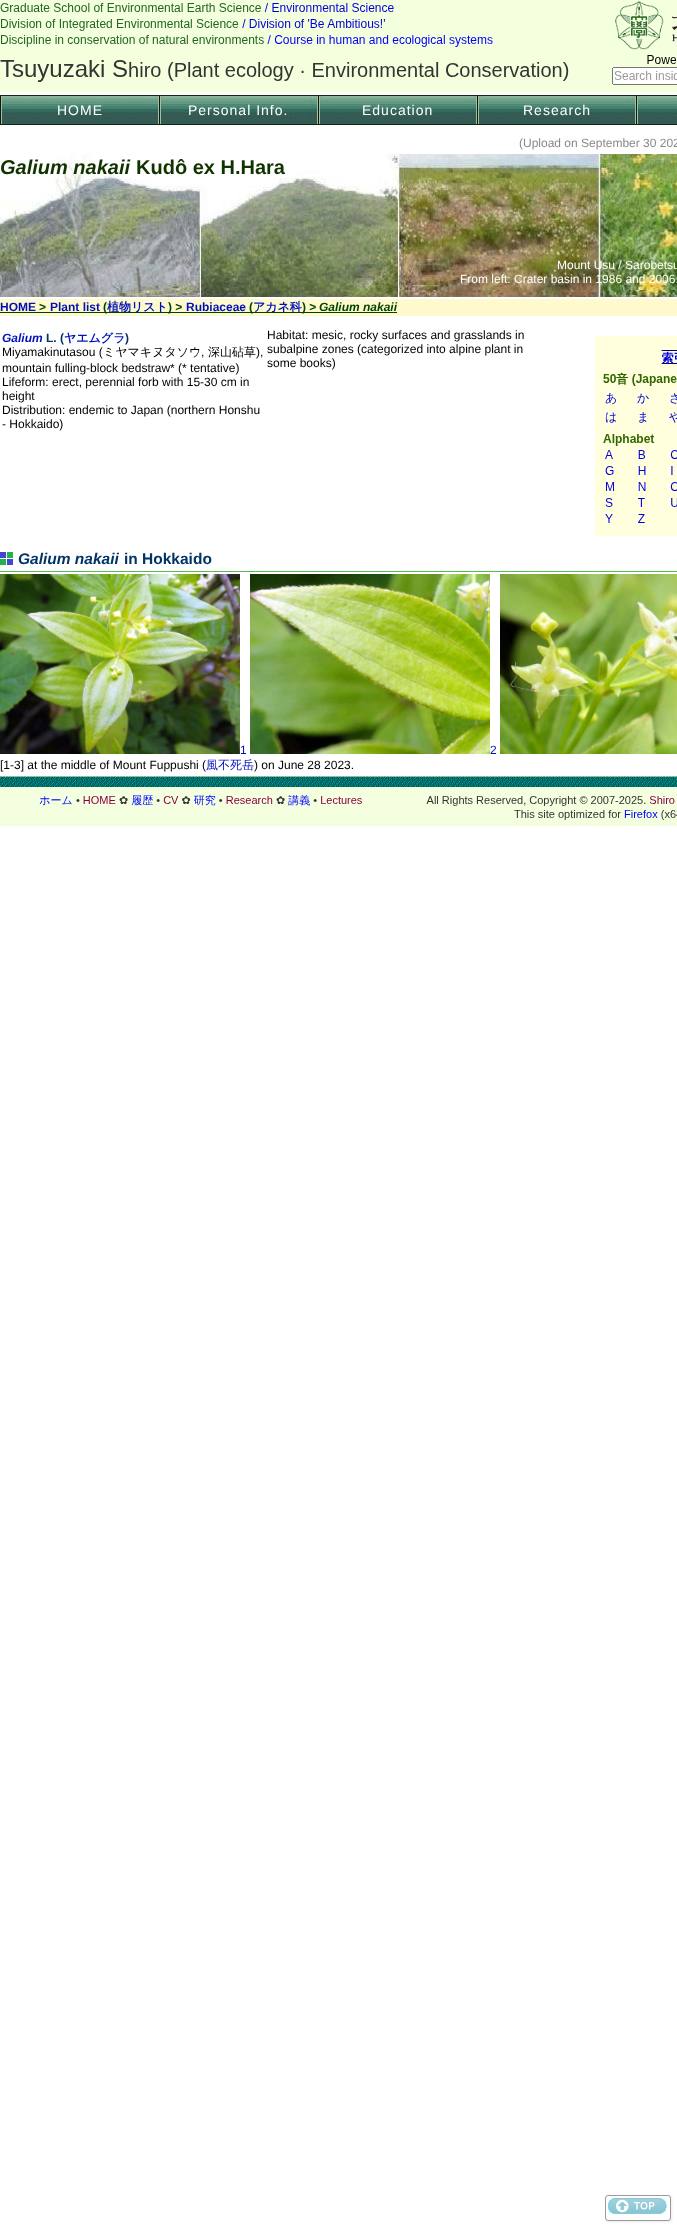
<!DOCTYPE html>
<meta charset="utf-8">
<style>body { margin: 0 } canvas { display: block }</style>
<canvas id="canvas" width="677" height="2227"></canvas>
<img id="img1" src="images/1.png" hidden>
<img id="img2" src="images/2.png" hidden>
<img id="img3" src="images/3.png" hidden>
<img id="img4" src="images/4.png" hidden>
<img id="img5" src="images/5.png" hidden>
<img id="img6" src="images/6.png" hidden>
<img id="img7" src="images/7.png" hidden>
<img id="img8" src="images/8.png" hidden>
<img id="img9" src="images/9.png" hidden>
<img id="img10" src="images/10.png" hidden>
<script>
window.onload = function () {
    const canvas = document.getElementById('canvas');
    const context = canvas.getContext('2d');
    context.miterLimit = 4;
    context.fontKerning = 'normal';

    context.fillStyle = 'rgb(255, 255, 255)';
    context.fillRect(0, 0, 677, 2227);
    context.drawImage(document.getElementById('img1'), 0, 0, 677, 92);
    context.drawImage(document.getElementById('img2'), 0, 95, 677, 30);
    context.drawImage(document.getElementById('img3'), 0, 154, 677, 143);
    context.fillStyle = 'rgb(255, 250, 205)';
    context.fillRect(0, 299, 677, 17);
    context.fillStyle = 'rgb(0, 68, 0)';
    context.fillRect(0, 312, 397, 1);
    context.drawImage(document.getElementById('img4'), 595, 336, 82, 200);
    context.drawImage(document.getElementById('img5'), 0, 552, 13, 13);
    context.fillStyle = 'rgb(85, 187, 85)';
    context.fillRect(0, 571, 677, 1);
    context.drawImage(document.getElementById('img6'), 0, 574, 240, 180);
    context.drawImage(document.getElementById('img7'), 250, 574, 240, 180);
    context.drawImage(document.getElementById('img8'), 500, 574, 177, 180);
    context.drawImage(document.getElementById('img9'), 0, 776, 677, 50);
    context.fillStyle = 'rgb(235, 235, 235)';
    context.filter = 'blur(1px)';
    context.beginPath();
    context.roundRect(606, 2196, 66, 26, 3);
    context.fill();
    context.filter = 'none';
    context.fillStyle = 'rgb(255, 255, 255)';
    context.beginPath();
    context.roundRect(605.5, 2195.5, 65, 25, 2.5);
    context.fill();
    context.strokeStyle = 'rgb(154, 154, 154)';
    context.stroke();
    context.drawImage(document.getElementById('img10'), 608, 2198, 59, 16);
    context.letterSpacing = '1px';
    context.font = '14px Liberation Sans';
    context.fillText('HOME', 57, 115);
    context.fillText('Personal Info.', 188, 115);
    context.fillText('Education', 362, 115);
    context.fillText('Research', 523, 115);
    context.letterSpacing = '0px';
    context.font = '12px Liberation Sans';
    context.fillStyle = 'rgb(136, 136, 136)';
    context.fillText('(Upload on September 30 202', 519, 147);
    context.font = 'italic bold 20px Liberation Sans';
    context.fillStyle = 'rgb(17, 51, 0)';
    context.fillText('Galium nakaii', 0, 174);
    context.font = 'bold 20px Liberation Sans';
    context.fillText('Kudô ex H.Hara', 136, 174);
    context.font = '12px Liberation Sans';
    context.fillStyle = 'rgb(255, 255, 255)';
    context.fillText('Mount Usu / Sarobetsu', 557, 269);
    context.fillText('From left: Crater basin in 1986 and 2006.', 460, 283);
    context.font = 'bold 12px Liberation Sans';
    context.fillStyle = 'rgb(0, 17, 187)';
    context.fillText('HOME', 0, 311);
    context.fillStyle = 'rgb(0, 68, 0)';
    context.fillText('>', 39, 311);
    context.fillStyle = 'rgb(0, 17, 187)';
    context.fillText('Plant list', 50, 311);
    context.fillStyle = 'rgb(0, 68, 0)';
    context.fillText('(', 103, 311);
    context.font = 'bold 12px WenQuanYi Zen Hei';
    context.fillStyle = 'rgb(0, 17, 187)';
    context.fillText('植物リスト', 107, 311);
    context.font = 'bold 12px Liberation Sans';
    context.fillStyle = 'rgb(0, 68, 0)';
    context.fillText(') >', 168, 311);
    context.fillStyle = 'rgb(0, 17, 187)';
    context.fillText('Rubiaceae', 186, 311);
    context.fillStyle = 'rgb(0, 68, 0)';
    context.fillText('(', 249, 311);
    context.font = 'bold 12px WenQuanYi Zen Hei';
    context.fillStyle = 'rgb(0, 17, 187)';
    context.fillText('アカネ科', 253, 311);
    context.font = 'bold 12px Liberation Sans';
    context.fillStyle = 'rgb(0, 68, 0)';
    context.fillText(') >', 302, 311);
    context.font = 'italic bold 12px Liberation Sans';
    context.fillText('Galium nakaii', 319, 311);
    context.fillStyle = 'rgb(0, 17, 187)';
    context.fillText('Galium', 2, 342);
    context.font = 'bold 12px Liberation Sans';
    context.fillStyle = 'rgb(0, 51, 102)';
    context.fillText('L. (', 46, 342);
    context.font = 'bold 12px WenQuanYi Zen Hei';
    context.fillStyle = 'rgb(0, 17, 187)';
    context.fillText('ヤエムグラ', 64, 342);
    context.font = 'bold 12px Liberation Sans';
    context.fillStyle = 'rgb(0, 51, 102)';
    context.fillText(')', 125, 342);
    context.font = '12px Liberation Sans';
    context.fillStyle = 'rgb(0, 0, 0)';
    context.fillText('Miyamakinutasou (', 2, 356);
    context.font = '500 12px WenQuanYi Zen Hei';
    context.fillText('ミヤマキヌタソウ', 103, 356);
    context.font = '12px Liberation Sans';
    context.fillText(',', 201, 356);
    context.font = '500 12px WenQuanYi Zen Hei';
    context.fillText('深山砧草', 208, 356);
    context.font = '12px Liberation Sans';
    context.fillText('),', 256, 356);
    context.fillText('mountain fulling-block bedstraw* (* tentative)', 2, 372);
    context.fillText('Lifeform: erect, perennial forb with 15-30 cm in', 2, 386);
    context.fillText('height', 2, 400);
    context.fillText('Distribution: endemic to Japan (northern Honshu', 2, 414);
    context.fillText('- Hokkaido)', 2, 428);
    context.fillText('Habitat: mesic, rocky surfaces and grasslands in', 267, 339);
    context.fillText('subalpine zones (categorized into alpine plant in', 267, 353);
    context.fillText('some books)', 267, 367);
    context.font = 'italic bold 15.5px Liberation Sans';
    context.fillStyle = 'rgb(0, 51, 102)';
    context.fillText('Galium nakaii', 18, 564);
    context.font = 'bold 15.5px Liberation Sans';
    context.fillText('in Hokkaido', 124, 564);
    context.font = '12px Liberation Sans';
    context.fillStyle = 'rgb(0, 17, 187)';
    context.fillText('1', 240, 754);
    context.fillText('2', 490, 754);
    context.fillStyle = 'rgb(0, 0, 0)';
    context.fillText('[1-3] at the middle of Mount Fuppushi (', 0, 769);
    context.font = '500 12px WenQuanYi Zen Hei';
    context.fillStyle = 'rgb(0, 17, 187)';
    context.fillText('風不死岳', 206, 769);
    context.font = '12px Liberation Sans';
    context.fillStyle = 'rgb(0, 0, 0)';
    context.fillText(') on June 28 2023.', 254, 769);
};
</script>
